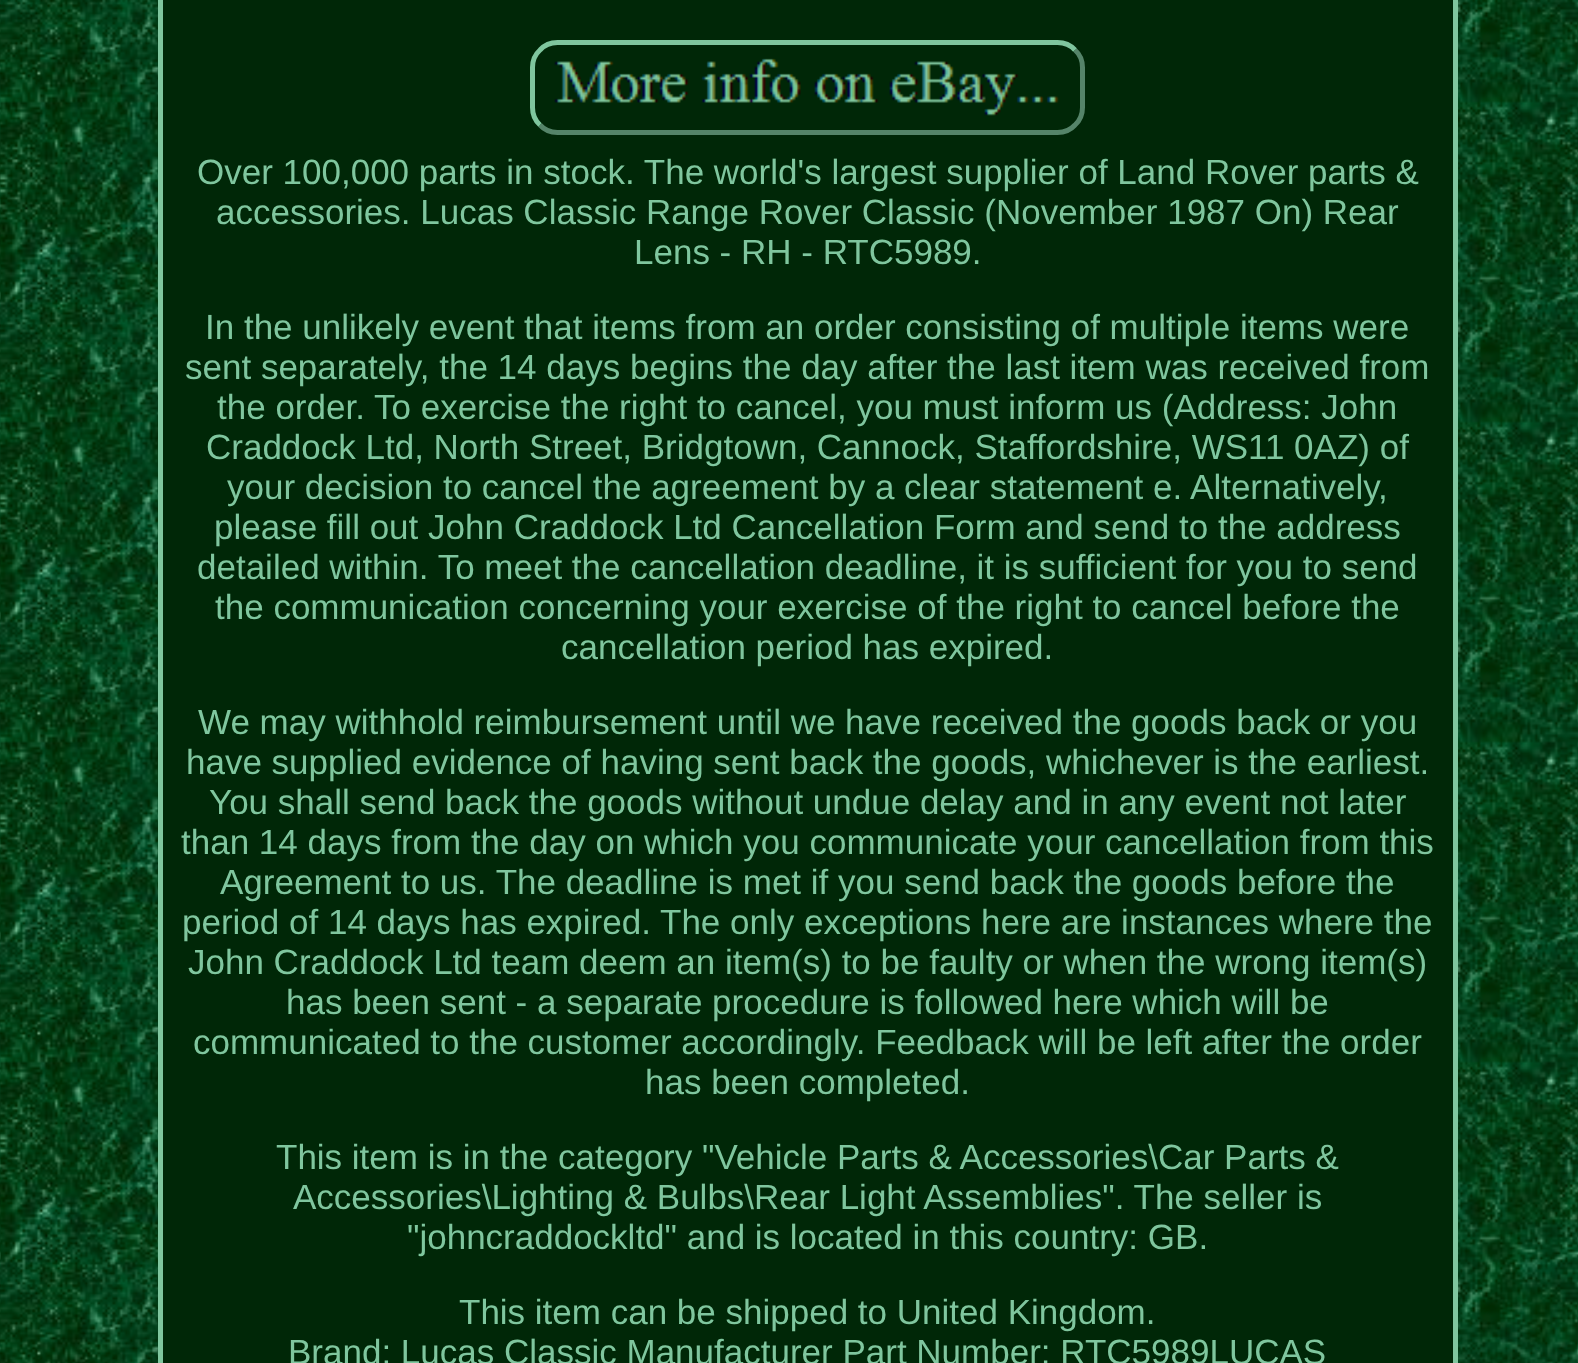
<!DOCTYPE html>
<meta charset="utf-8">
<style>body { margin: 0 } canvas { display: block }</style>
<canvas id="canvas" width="1578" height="1363"></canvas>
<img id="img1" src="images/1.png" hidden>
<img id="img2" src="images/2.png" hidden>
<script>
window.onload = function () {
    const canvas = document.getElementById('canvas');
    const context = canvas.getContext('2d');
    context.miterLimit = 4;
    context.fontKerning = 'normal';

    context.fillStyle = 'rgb(255, 255, 255)';
    context.fillRect(0, 0, 1578, 1363);
    context.drawImage(document.getElementById('img1'), 0, 0, 1578, 1363);
    context.fillStyle = 'rgb(0, 39, 7)';
    context.beginPath();
    context.rect(160.5, -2.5, 1295, 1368);
    context.fill();
    context.strokeStyle = 'rgb(127, 198, 158)';
    context.lineWidth = 5;
    context.stroke();
    context.beginPath();
    context.moveTo(1075, 50);
    context.bezierCurveTo(1080, 54.5, 1082.5, 61, 1082.5, 67.5);
    context.lineTo(1082.5, 107.5);
    context.bezierCurveTo(1082.5, 114, 1080, 120.5, 1075, 125);
    context.bezierCurveTo(1070.5, 130, 1064, 132.5, 1057.5, 132.5);
    context.lineTo(557.5, 132.5);
    context.bezierCurveTo(551, 132.5, 544.5, 130, 540, 125);
    context.strokeStyle = 'rgb(85, 132, 105)';
    context.stroke();
    context.beginPath();
    context.moveTo(540, 125);
    context.bezierCurveTo(535, 120.5, 532.5, 114, 532.5, 107.5);
    context.lineTo(532.5, 67.5);
    context.bezierCurveTo(532.5, 61, 535, 54.5, 540, 50);
    context.bezierCurveTo(544.5, 45, 551, 42.5, 557.5, 42.5);
    context.lineTo(1057.5, 42.5);
    context.bezierCurveTo(1064, 42.5, 1070.5, 45, 1075, 50);
    context.strokeStyle = 'rgb(127, 198, 158)';
    context.stroke();
    context.drawImage(document.getElementById('img2'), 554, 58, 505, 58);
    context.font = '35px Liberation Sans';
    context.fillStyle = 'rgb(127, 198, 158)';
    context.fillText('Over 100,000 parts in stock. The world\'s largest supplier of Land Rover parts &', 197, 184);
    context.fillText('accessories. Lucas Classic Range Rover Classic (November 1987 On) Rear', 216, 224);
    context.fillText('Lens - RH - RTC5989.', 634, 264);
    context.fillText('In the unlikely event that items from an order consisting of multiple items were', 205, 339);
    context.fillText('sent separately, the 14 days begins the day after the last item was received from', 185, 379);
    context.fillText('the order. To exercise the right to cancel, you must inform us (Address: John', 217, 419);
    context.fillText('Craddock Ltd, North Street, Bridgtown, Cannock, Staffordshire, WS11 0AZ) of', 206, 459);
    context.fillText('your decision to cancel the agreement by a clear statement e. Alternatively,', 227, 499);
    context.fillText('please fill out John Craddock Ltd Cancellation Form and send to the address', 214, 539);
    context.fillText('detailed within. To meet the cancellation deadline, it is sufficient for you to send', 197, 579);
    context.fillText('the communication concerning your exercise of the right to cancel before the', 215, 619);
    context.fillText('cancellation period has expired.', 561, 659);
    context.fillText('We may withhold reimbursement until we have received the goods back or you', 198, 734);
    context.fillText('have supplied evidence of having sent back the goods, whichever is the earliest.', 186, 774);
    context.fillText('You shall send back the goods without undue delay and in any event not later', 209, 814);
    context.fillText('than 14 days from the day on which you communicate your cancellation from this', 181, 854);
    context.fillText('Agreement to us. The deadline is met if you send back the goods before the', 220, 894);
    context.fillText('period of 14 days has expired. The only exceptions here are instances where the', 182, 934);
    context.fillText('John Craddock Ltd team deem an item(s) to be faulty or when the wrong item(s)', 188, 974);
    context.fillText('has been sent - a separate procedure is followed here which will be', 286, 1014);
    context.fillText('communicated to the customer accordingly. Feedback will be left after the order', 193, 1054);
    context.fillText('has been completed.', 645, 1094);
    context.fillText('This item is in the category "Vehicle Parts & Accessories\\Car Parts &', 276, 1169);
    context.fillText('Accessories\\Lighting & Bulbs\\Rear Light Assemblies". The seller is', 293, 1209);
    context.fillText('"johncraddockltd" and is located in this country: GB.', 407, 1249);
    context.fillText('This item can be shipped to United Kingdom.', 459, 1324);
    context.fillText('Brand: Lucas Classic Manufacturer Part Number: RTC5989LUCAS', 288, 1364);
};
</script>
